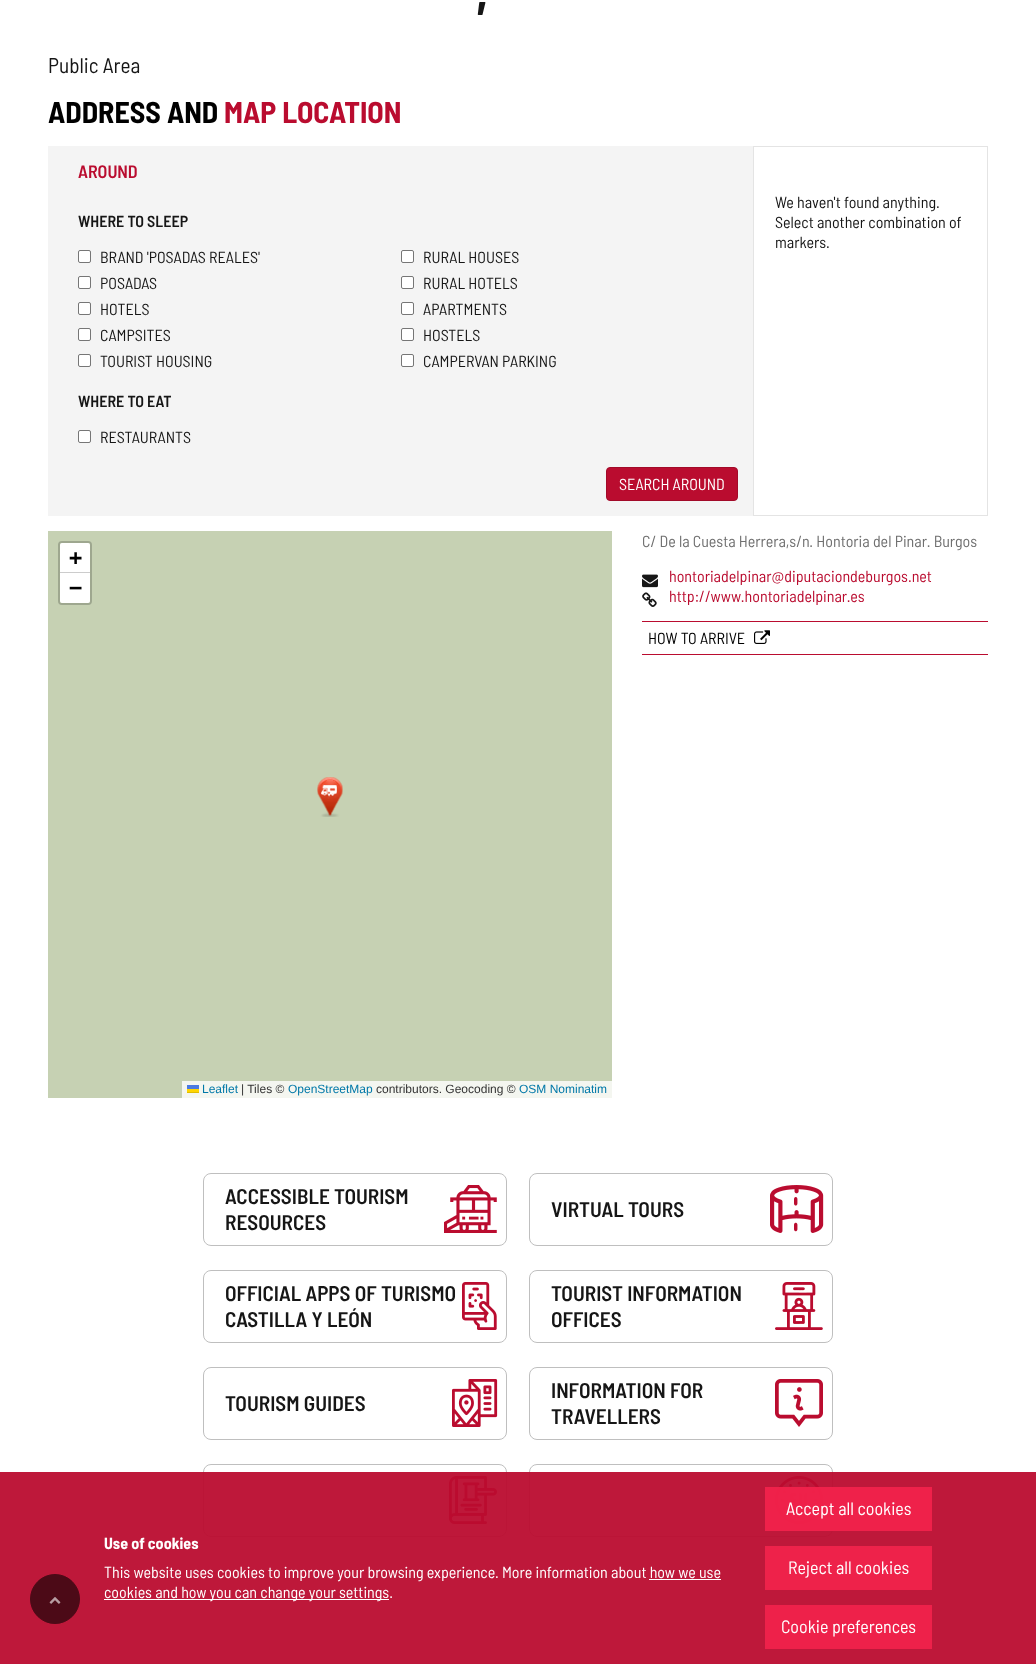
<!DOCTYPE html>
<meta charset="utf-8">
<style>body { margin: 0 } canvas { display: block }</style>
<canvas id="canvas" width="1036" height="1664"></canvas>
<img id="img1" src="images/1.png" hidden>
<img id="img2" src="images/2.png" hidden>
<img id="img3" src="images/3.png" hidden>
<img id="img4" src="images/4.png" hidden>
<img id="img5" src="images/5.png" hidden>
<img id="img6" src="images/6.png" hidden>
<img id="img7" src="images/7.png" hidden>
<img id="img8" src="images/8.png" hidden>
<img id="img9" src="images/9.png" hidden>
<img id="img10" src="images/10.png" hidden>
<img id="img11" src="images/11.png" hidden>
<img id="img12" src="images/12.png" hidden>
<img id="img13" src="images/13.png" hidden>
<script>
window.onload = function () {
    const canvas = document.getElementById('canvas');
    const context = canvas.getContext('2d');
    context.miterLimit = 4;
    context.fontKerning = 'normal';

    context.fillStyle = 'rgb(255, 255, 255)';
    context.fillRect(0, 0, 1036, 1664);
    context.fillStyle = 'rgb(244, 244, 244)';
    context.fillRect(48, 146, 705, 370);
    context.fillStyle = 'rgb(255, 255, 255)';
    context.beginPath();
    context.roundRect(78.5, 250.5, 12, 12, 1.5);
    context.fill();
    context.strokeStyle = 'rgb(118, 118, 118)';
    context.stroke();
    context.beginPath();
    context.roundRect(401.5, 250.5, 12, 12, 1.5);
    context.fill();
    context.stroke();
    context.beginPath();
    context.roundRect(78.5, 276.5, 12, 12, 1.5);
    context.fill();
    context.stroke();
    context.beginPath();
    context.roundRect(401.5, 276.5, 12, 12, 1.5);
    context.fill();
    context.stroke();
    context.beginPath();
    context.roundRect(78.5, 302.5, 12, 12, 1.5);
    context.fill();
    context.stroke();
    context.beginPath();
    context.roundRect(401.5, 302.5, 12, 12, 1.5);
    context.fill();
    context.stroke();
    context.beginPath();
    context.roundRect(78.5, 328.5, 12, 12, 1.5);
    context.fill();
    context.stroke();
    context.beginPath();
    context.roundRect(401.5, 328.5, 12, 12, 1.5);
    context.fill();
    context.stroke();
    context.beginPath();
    context.roundRect(78.5, 354.5, 12, 12, 1.5);
    context.fill();
    context.stroke();
    context.beginPath();
    context.roundRect(401.5, 354.5, 12, 12, 1.5);
    context.fill();
    context.stroke();
    context.beginPath();
    context.roundRect(78.5, 430.5, 12, 12, 1.5);
    context.fill();
    context.stroke();
    context.fillStyle = 'rgb(186, 12, 47)';
    context.beginPath();
    context.roundRect(606.5, 467.5, 131, 33, 3.5);
    context.fill();
    context.strokeStyle = 'rgb(162, 10, 41)';
    context.stroke();
    context.strokeStyle = 'rgb(228, 228, 228)';
    context.strokeRect(753.5, 146.5, 234, 369);
    context.fillStyle = 'rgb(198, 209, 179)';
    context.fillRect(48, 531, 564, 567);
    context.drawImage(document.getElementById('img1'), 317, 777, 26, 40);
    context.beginPath();
    context.roundRect(59, 542, 32, 62, 3);
    context.strokeStyle = 'rgb(158, 167, 143)';
    context.lineWidth = 2;
    context.stroke();
    context.fillStyle = 'rgb(255, 255, 255)';
    context.beginPath();
    context.roundRect(60, 543, 30, 30, [2, 2, 0, 0]);
    context.fill();
    context.fillStyle = 'rgb(204, 204, 204)';
    context.fillRect(60, 572, 30, 1);
    context.fillStyle = 'rgb(255, 255, 255)';
    context.beginPath();
    context.roundRect(60, 573, 30, 30, [0, 0, 2, 2]);
    context.fill();
    context.fillStyle = 'rgb(244, 246, 240)';
    context.fillRect(182, 1081, 430, 17);
    context.fillStyle = 'rgb(76, 123, 225)';
    context.fillRect(187, 1085, 12, 4);
    context.fillStyle = 'rgb(255, 213, 0)';
    context.fillRect(187, 1089, 12, 3);
    context.fillStyle = 'rgb(224, 188, 0)';
    context.fillRect(187, 1092, 12, 1);
    context.drawImage(document.getElementById('img2'), 642, 574, 16, 14);
    context.drawImage(document.getElementById('img3'), 642, 592, 15, 15);
    context.fillStyle = 'rgb(186, 12, 47)';
    context.fillRect(642, 621, 346, 1);
    context.fillRect(642, 654, 346, 1);
    context.drawImage(document.getElementById('img4'), 754, 630, 16, 14);
    context.beginPath();
    context.roundRect(203.5, 1173.5, 303, 72, 7.5);
    context.strokeStyle = 'rgb(191, 191, 191)';
    context.lineWidth = 1;
    context.stroke();
    context.drawImage(document.getElementById('img5'), 444, 1185, 53, 48);
    context.beginPath();
    context.roundRect(529.5, 1173.5, 303, 72, 7.5);
    context.stroke();
    context.drawImage(document.getElementById('img6'), 770, 1185, 54, 48);
    context.beginPath();
    context.roundRect(203.5, 1270.5, 303, 72, 7.5);
    context.stroke();
    context.drawImage(document.getElementById('img7'), 462, 1282, 35, 48);
    context.beginPath();
    context.roundRect(529.5, 1270.5, 303, 72, 7.5);
    context.stroke();
    context.drawImage(document.getElementById('img8'), 775, 1282, 48, 48);
    context.beginPath();
    context.roundRect(203.5, 1367.5, 303, 72, 7.5);
    context.stroke();
    context.drawImage(document.getElementById('img9'), 452, 1379, 46, 48);
    context.beginPath();
    context.roundRect(529.5, 1367.5, 303, 72, 7.5);
    context.stroke();
    context.drawImage(document.getElementById('img10'), 775, 1379, 48, 48);
    context.beginPath();
    context.roundRect(203.5, 1464.5, 303, 72, 7.5);
    context.stroke();
    context.drawImage(document.getElementById('img11'), 449, 1476, 48, 48);
    context.beginPath();
    context.roundRect(529.5, 1464.5, 303, 72, 7.5);
    context.stroke();
    context.drawImage(document.getElementById('img12'), 775, 1476, 48, 48);
    context.fillStyle = 'rgb(249, 249, 249)';
    context.fillRect(0, 1618, 1036, 45);
    context.fillStyle = 'rgb(228, 228, 228)';
    context.fillRect(0, 1663, 1036, 1);
    context.fillStyle = 'rgba(186, 12, 47, 0.95)';
    context.fillRect(0, 1472, 1036, 192);
    context.fillStyle = 'rgb(76, 10, 23)';
    context.beginPath();
    context.arc(55, 1599, 24.5, 0, 2 * Math.PI);
    context.fill();
    context.strokeStyle = 'rgb(76, 10, 23)';
    context.stroke();
    context.drawImage(document.getElementById('img13'), 49, 1597, 12, 7);
    context.fillStyle = 'rgb(255, 255, 255)';
    context.fillRect(649, 1579, 72, 1);
    context.fillRect(104, 1599, 285, 1);
    context.fillStyle = 'rgba(241, 34, 75, 0.95)';
    context.fillRect(765, 1487, 167, 44);
    context.fillStyle = 'rgb(238, 34, 74)';
    context.fillRect(765, 1546, 167, 44);
    context.fillStyle = 'rgb(238, 33, 74)';
    context.fillRect(765, 1605, 167, 44);
    context.font = 'bold 50px Barlow Semi Condensed';
    context.fillStyle = 'rgb(22, 22, 22)';
    context.fillText(',', 476, 10);
    context.font = '21.25px Barlow Semi Condensed';
    context.fillText('Public Area', 48, 73);
    context.font = 'bold 30px Barlow Semi Condensed';
    context.fillStyle = 'rgb(0, 0, 0)';
    context.fillText('ADDRESS AND', 48, 123);
    context.fillStyle = 'rgb(186, 12, 47)';
    context.fillText('MAP LOCATION', 224, 123);
    context.font = '600 18px Barlow Semi Condensed';
    context.fillText('AROUND', 78, 178);
    context.font = '600 16px Barlow Semi Condensed';
    context.fillStyle = 'rgb(22, 22, 22)';
    context.fillText('WHERE TO SLEEP', 78, 227);
    context.font = '16px Barlow Semi Condensed';
    context.fillText('BRAND \'POSADAS REALES\'', 100, 263);
    context.fillText('RURAL HOUSES', 423, 263);
    context.fillText('POSADAS', 100, 289);
    context.fillText('RURAL HOTELS', 423, 289);
    context.fillText('HOTELS', 100, 315);
    context.fillText('APARTMENTS', 423, 315);
    context.fillText('CAMPSITES', 100, 341);
    context.fillText('HOSTELS', 423, 341);
    context.fillText('TOURIST HOUSING', 100, 367);
    context.fillText('CAMPERVAN PARKING', 423, 367);
    context.font = '600 16px Barlow Semi Condensed';
    context.fillText('WHERE TO EAT', 78, 407);
    context.font = '16px Barlow Semi Condensed';
    context.fillText('RESTAURANTS', 100, 443);
    context.fillStyle = 'rgb(255, 255, 255)';
    context.fillText('SEARCH AROUND', 619, 490);
    context.fillStyle = 'rgb(22, 22, 22)';
    context.fillText('We haven\'t found anything.', 775, 208);
    context.fillText('Select another combination of', 775, 228);
    context.fillText('markers.', 775, 248);
    context.font = 'bold 22px DejaVu Sans Mono';
    context.fillStyle = 'rgb(0, 0, 0)';
    context.fillText('+', 69, 565);
    context.fillText('−', 69, 595);
    context.font = '12px Liberation Sans';
    context.fillStyle = 'rgb(0, 120, 168)';
    context.fillText('Leaflet', 202, 1093);
    context.fillStyle = 'rgb(51, 51, 51)';
    context.fillText('| Tiles ©', 241, 1093);
    context.fillStyle = 'rgb(0, 120, 168)';
    context.fillText('OpenStreetMap', 288, 1093);
    context.fillStyle = 'rgb(51, 51, 51)';
    context.fillText('contributors. Geocoding ©', 376, 1093);
    context.fillStyle = 'rgb(0, 120, 168)';
    context.fillText('OSM Nominatim', 519, 1093);
    context.font = '16px Barlow Semi Condensed';
    context.fillStyle = 'rgb(112, 112, 112)';
    context.fillText('C/ De la Cuesta Herrera,s/n. Hontoria del Pinar. Burgos', 642, 547);
    context.fillStyle = 'rgb(186, 12, 47)';
    context.fillText('hontoriadelpinar@diputaciondeburgos.net', 669, 582);
    context.fillText('http://www.hontoriadelpinar.es', 669, 602);
    context.fillStyle = 'rgb(0, 0, 0)';
    context.fillText('HOW TO ARRIVE', 648, 644);
    context.font = '600 21.25px Barlow Semi Condensed';
    context.fillStyle = 'rgb(22, 22, 22)';
    context.fillText('ACCESSIBLE TOURISM', 225, 1204);
    context.fillText('RESOURCES', 225, 1230);
    context.fillText('VIRTUAL TOURS', 551, 1217);
    context.fillText('OFFICIAL APPS OF TURISMO', 225, 1301);
    context.fillText('CASTILLA Y LEÓN', 225, 1327);
    context.fillText('TOURIST INFORMATION', 551, 1301);
    context.fillText('OFFICES', 551, 1327);
    context.fillText('TOURISM GUIDES', 225, 1411);
    context.fillText('INFORMATION FOR', 551, 1398);
    context.fillText('TRAVELLERS', 551, 1424);
    context.font = 'bold 16px Barlow Semi Condensed';
    context.fillStyle = 'rgb(255, 255, 255)';
    context.fillText('Use of cookies', 104, 1549);
    context.font = '16px Barlow Semi Condensed';
    context.fillText('This website uses cookies to improve your browsing experience. More information about how we use', 104, 1578);
    context.fillText('cookies and how you can change your settings.', 104, 1598);
    context.font = '18px Barlow Semi Condensed';
    context.fillText('Accept all cookies', 786, 1515);
    context.fillText('Reject all cookies', 788, 1574);
    context.fillText('Cookie preferences', 781, 1633);
};
</script>
